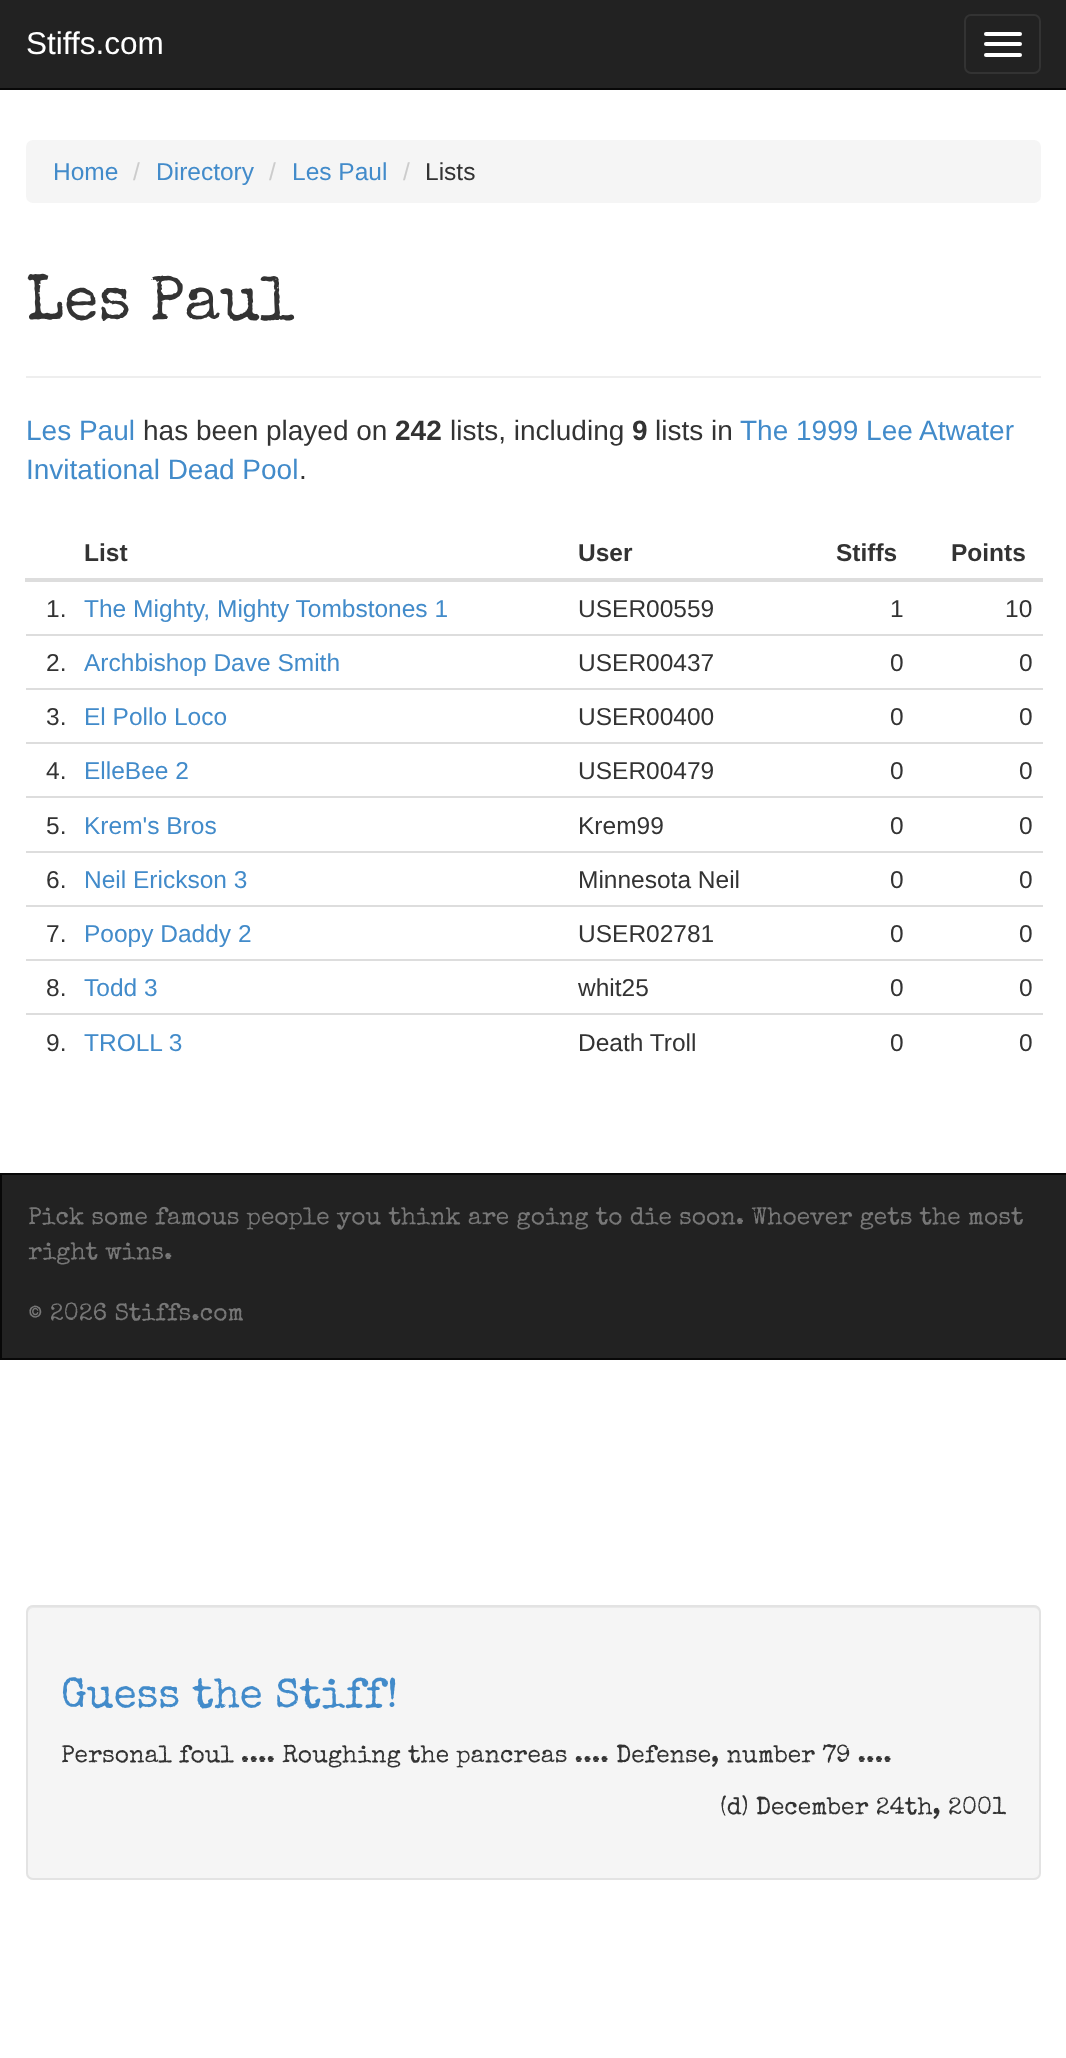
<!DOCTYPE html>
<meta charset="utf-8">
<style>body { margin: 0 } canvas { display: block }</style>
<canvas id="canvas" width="1066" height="2058"></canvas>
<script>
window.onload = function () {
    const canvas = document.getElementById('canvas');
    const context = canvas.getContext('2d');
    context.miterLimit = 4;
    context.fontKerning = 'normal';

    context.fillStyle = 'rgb(255, 255, 255)';
    context.fillRect(0, 0, 1066, 2058);
    context.fillStyle = 'rgb(34, 34, 34)';
    context.fillRect(0, 0, 1066, 88);
    context.fillStyle = 'rgb(8, 8, 8)';
    context.fillRect(0, 88, 1066, 2);
    context.beginPath();
    context.roundRect(965, 15, 75, 58, 6);
    context.strokeStyle = 'rgb(51, 51, 51)';
    context.lineWidth = 2;
    context.stroke();
    context.fillStyle = 'rgb(255, 255, 255)';
    context.beginPath();
    context.roundRect(984, 32, 38, 4, 2);
    context.fill();
    context.beginPath();
    context.roundRect(984, 42, 38, 4, 2);
    context.fill();
    context.beginPath();
    context.roundRect(984, 53, 38, 4, 2);
    context.fill();
    context.fillStyle = 'rgb(245, 245, 245)';
    context.beginPath();
    context.roundRect(26, 140, 1015, 63, 7);
    context.fill();
    context.fillStyle = 'rgb(238, 238, 238)';
    context.fillRect(26, 376, 1015, 2);
    context.fillStyle = 'rgb(221, 221, 221)';
    context.fillRect(25, 578, 1018, 4);
    context.fillRect(26, 634, 1017, 2);
    context.fillRect(26, 688, 1017, 2);
    context.fillRect(26, 742, 1017, 2);
    context.fillRect(26, 796, 1017, 2);
    context.fillRect(26, 851, 1017, 2);
    context.fillRect(26, 905, 1017, 2);
    context.fillRect(26, 959, 1017, 2);
    context.fillRect(26, 1013, 1017, 2);
    context.fillStyle = 'rgb(34, 34, 34)';
    context.beginPath();
    context.rect(1, 1174, 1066, 185);
    context.fill();
    context.strokeStyle = 'rgb(8, 8, 8)';
    context.stroke();
    context.fillStyle = 'rgb(245, 245, 245)';
    context.beginPath();
    context.roundRect(26, 1605, 1015, 275, 7);
    context.fill();
    context.fillStyle = 'rgb(233, 233, 233)';
    context.beginPath();
    context.moveTo(33, 1608);
    context.lineTo(1034, 1608);
    context.bezierCurveTo(1037, 1608, 1040, 1611, 1040, 1614);
    context.lineTo(1040, 1612);
    context.bezierCurveTo(1040, 1609, 1038, 1607, 1035, 1607);
    context.lineTo(33, 1607);
    context.bezierCurveTo(30, 1607, 28, 1609, 28, 1612);
    context.lineTo(28, 1614);
    context.bezierCurveTo(28, 1611, 30, 1608, 33, 1608);
    context.closePath();
    context.fill();
    context.beginPath();
    context.roundRect(27, 1606, 1013, 273, 6);
    context.strokeStyle = 'rgb(227, 227, 227)';
    context.stroke();
    context.font = '31.5px Liberation Sans';
    context.fillStyle = 'rgb(255, 255, 255)';
    context.fillText('Stiffs.com', 26, 54);
    context.font = '24.5px Liberation Sans';
    context.fillStyle = 'rgb(66, 139, 202)';
    context.fillText('Home', 53, 180);
    context.fillStyle = 'rgb(204, 204, 204)';
    context.fillText('/', 133, 180);
    context.fillStyle = 'rgb(66, 139, 202)';
    context.fillText('Directory', 156, 180);
    context.fillStyle = 'rgb(204, 204, 204)';
    context.fillText('/', 269, 180);
    context.fillStyle = 'rgb(66, 139, 202)';
    context.fillText('Les Paul', 292, 180);
    context.fillStyle = 'rgb(204, 204, 204)';
    context.fillText('/', 403, 180);
    context.fillStyle = 'rgb(51, 51, 51)';
    context.fillText('Lists', 425, 180);
    context.font = '63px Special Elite';
    context.fillText('Les Paul', 26, 319);
    context.font = '28px Liberation Sans';
    context.fillStyle = 'rgb(66, 139, 202)';
    context.fillText('Les Paul', 26, 440);
    context.fillStyle = 'rgb(51, 51, 51)';
    context.fillText('has been played on', 143, 440);
    context.font = 'bold 28px Liberation Sans';
    context.fillText('242', 395, 440);
    context.font = '28px Liberation Sans';
    context.fillText('lists, including', 450, 440);
    context.font = 'bold 28px Liberation Sans';
    context.fillText('9', 632, 440);
    context.font = '28px Liberation Sans';
    context.fillText('lists in', 655, 440);
    context.fillStyle = 'rgb(66, 139, 202)';
    context.fillText('The 1999 Lee Atwater', 740, 440);
    context.fillText('Invitational Dead Pool', 26, 479);
    context.fillStyle = 'rgb(51, 51, 51)';
    context.fillText('.', 299, 479);
    context.font = 'bold 24.5px Liberation Sans';
    context.fillText('List', 84, 561);
    context.fillText('User', 578, 561);
    context.fillText('Stiffs', 836, 561);
    context.fillText('Points', 951, 561);
    context.font = '24.5px Liberation Sans';
    context.fillText('1.', 46, 617);
    context.fillStyle = 'rgb(66, 139, 202)';
    context.fillText('The Mighty, Mighty Tombstones 1', 84, 617);
    context.fillStyle = 'rgb(51, 51, 51)';
    context.fillText('USER00559', 578, 617);
    context.fillText('1', 890, 617);
    context.fillText('10', 1005, 617);
    context.fillText('2.', 46, 671);
    context.fillStyle = 'rgb(66, 139, 202)';
    context.fillText('Archbishop Dave Smith', 84, 671);
    context.fillStyle = 'rgb(51, 51, 51)';
    context.fillText('USER00437', 578, 671);
    context.fillText('0', 890, 671);
    context.fillText('0', 1019, 671);
    context.fillText('3.', 46, 725);
    context.fillStyle = 'rgb(66, 139, 202)';
    context.fillText('El Pollo Loco', 84, 725);
    context.fillStyle = 'rgb(51, 51, 51)';
    context.fillText('USER00400', 578, 725);
    context.fillText('0', 890, 725);
    context.fillText('0', 1019, 725);
    context.fillText('4.', 46, 779);
    context.fillStyle = 'rgb(66, 139, 202)';
    context.fillText('ElleBee 2', 84, 779);
    context.fillStyle = 'rgb(51, 51, 51)';
    context.fillText('USER00479', 578, 779);
    context.fillText('0', 890, 779);
    context.fillText('0', 1019, 779);
    context.fillText('5.', 46, 834);
    context.fillStyle = 'rgb(66, 139, 202)';
    context.fillText('Krem\'s Bros', 84, 834);
    context.fillStyle = 'rgb(51, 51, 51)';
    context.fillText('Krem99', 578, 834);
    context.fillText('0', 890, 834);
    context.fillText('0', 1019, 834);
    context.fillText('6.', 46, 888);
    context.fillStyle = 'rgb(66, 139, 202)';
    context.fillText('Neil Erickson 3', 84, 888);
    context.fillStyle = 'rgb(51, 51, 51)';
    context.fillText('Minnesota Neil', 578, 888);
    context.fillText('0', 890, 888);
    context.fillText('0', 1019, 888);
    context.fillText('7.', 46, 942);
    context.fillStyle = 'rgb(66, 139, 202)';
    context.fillText('Poopy Daddy 2', 84, 942);
    context.fillStyle = 'rgb(51, 51, 51)';
    context.fillText('USER02781', 578, 942);
    context.fillText('0', 890, 942);
    context.fillText('0', 1019, 942);
    context.fillText('8.', 46, 996);
    context.fillStyle = 'rgb(66, 139, 202)';
    context.fillText('Todd 3', 84, 996);
    context.fillStyle = 'rgb(51, 51, 51)';
    context.fillText('whit25', 578, 996);
    context.fillText('0', 890, 996);
    context.fillText('0', 1019, 996);
    context.fillText('9.', 46, 1051);
    context.fillStyle = 'rgb(66, 139, 202)';
    context.fillText('TROLL 3', 84, 1051);
    context.fillStyle = 'rgb(51, 51, 51)';
    context.fillText('Death Troll', 578, 1051);
    context.fillText('0', 890, 1051);
    context.fillText('0', 1019, 1051);
    context.font = '24.5px Special Elite';
    context.fillStyle = 'rgb(119, 119, 119)';
    context.fillText('Pick some famous people you think are going to die soon. Whoever gets the most', 28, 1224);
    context.fillText('right wins.', 28, 1259);
    context.fillText('© 2026 Stiffs.com', 28, 1320);
    context.font = '42px Special Elite';
    context.fillStyle = 'rgb(66, 139, 202)';
    context.fillText('Guess the Stiff!', 61, 1707);
    context.font = '24.5px Special Elite';
    context.fillStyle = 'rgb(51, 51, 51)';
    context.fillText('Personal foul .... Roughing the pancreas .... Defense, number 79 ....', 61, 1762);
    context.fillText('(d) December 24th, 2001', 720, 1814);
};
</script>
